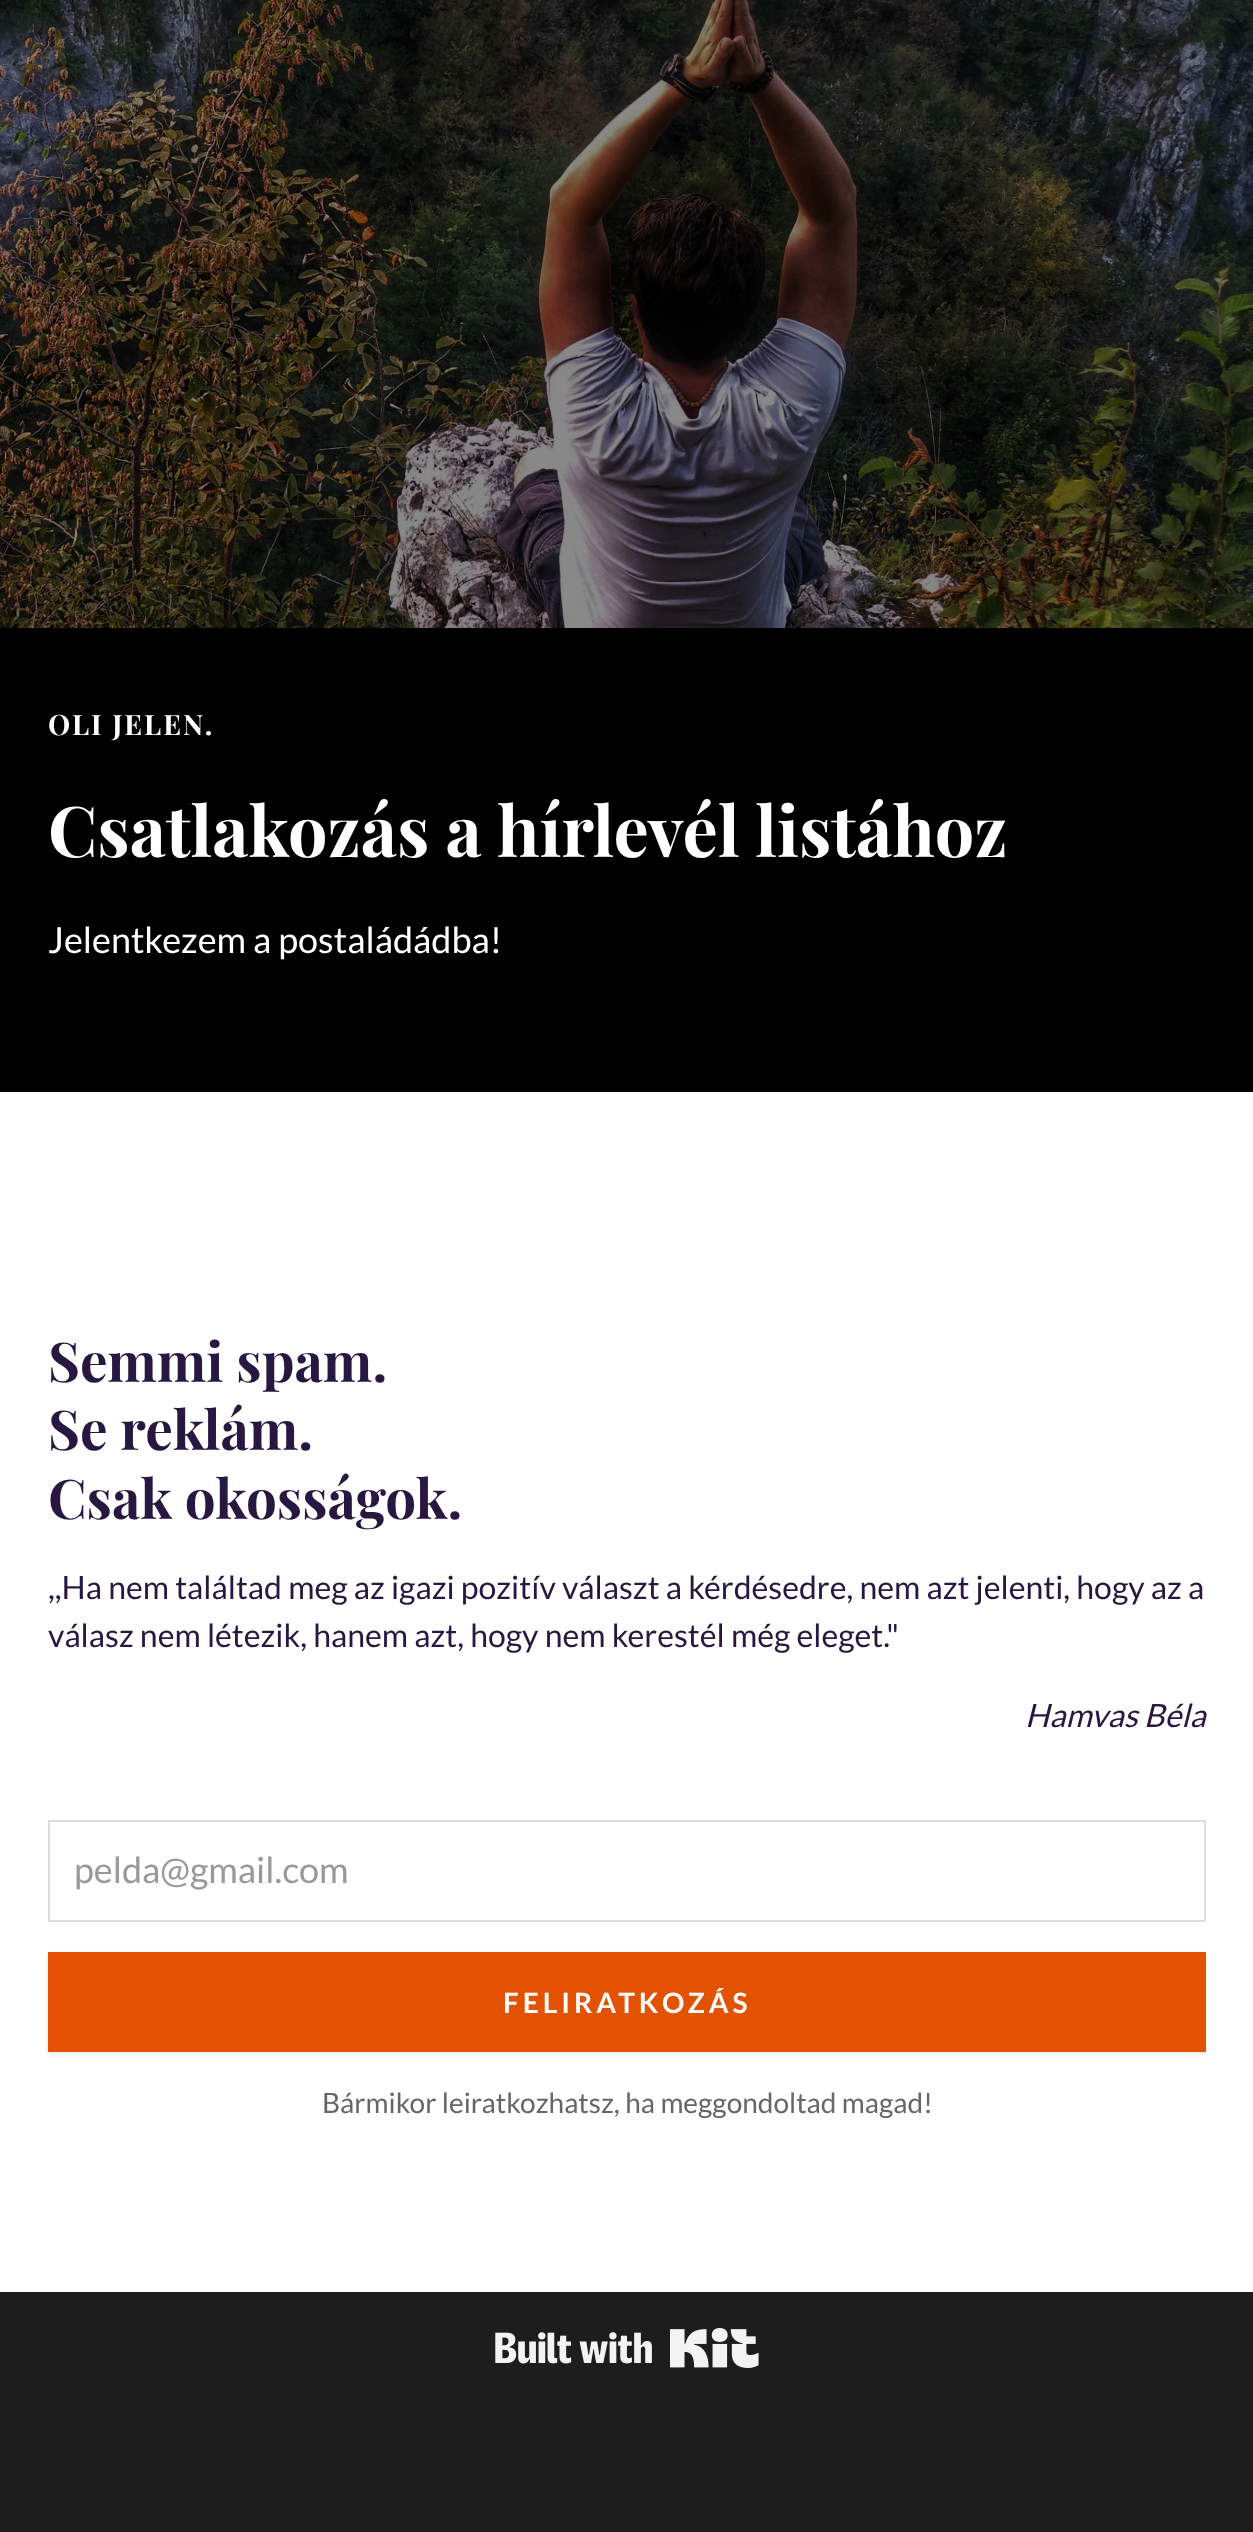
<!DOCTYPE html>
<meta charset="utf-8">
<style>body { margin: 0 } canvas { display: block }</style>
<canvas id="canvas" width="1253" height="2532"></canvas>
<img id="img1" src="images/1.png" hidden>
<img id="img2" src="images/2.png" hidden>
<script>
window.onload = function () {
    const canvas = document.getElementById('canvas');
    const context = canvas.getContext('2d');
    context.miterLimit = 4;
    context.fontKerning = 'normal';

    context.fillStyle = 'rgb(29, 29, 29)';
    context.fillRect(0, 0, 1253, 2532);
    context.fillStyle = 'rgb(0, 0, 0)';
    context.fillRect(0, 0, 1253, 1092);
    context.drawImage(document.getElementById('img1'), 0, 0, 1253, 628);
    context.fillStyle = 'rgb(255, 255, 255)';
    context.fillRect(0, 1092, 1253, 1200);
    context.strokeStyle = 'rgb(221, 221, 221)';
    context.lineWidth = 2;
    context.strokeRect(49, 1821, 1156, 100);
    context.fillStyle = 'rgba(0, 0, 0, 0.1)';
    context.filter = 'blur(2px)';
    context.beginPath();
    context.rect(48, 1954, 1158, 100);
    context.fill();
    context.filter = 'none';
    context.fillStyle = 'rgb(227, 82, 0)';
    context.fillRect(48, 1952, 1158, 100);
    context.drawImage(document.getElementById('img2'), 495, 2328, 264, 40);
    context.letterSpacing = '2px';
    context.font = 'bold 28px Playfair Display';
    context.fillStyle = 'rgb(255, 255, 255)';
    context.fillText('OLI JELEN.', 48, 735);
    context.letterSpacing = '0px';
    context.font = 'bold 70px Playfair Display';
    context.fillText('Csatlakozás a hírlevél listához', 48, 857);
    context.font = '36px Lato';
    context.fillText('Jelentkezem a postaládádba!', 48, 953);
    context.font = 'bold 54.75px Playfair Display';
    context.fillStyle = 'rgb(40, 24, 65)';
    context.fillText('Semmi spam.', 48, 1382);
    context.fillText('Se reklám.', 48, 1450);
    context.fillText('Csak okosságok.', 48, 1519);
    context.font = '32px Lato';
    context.fillText(',,Ha nem találtad meg az igazi pozitív választ a kérdésedre, nem azt jelenti, hogy az a', 48, 1599);
    context.fillText('válasz nem létezik, hanem azt, hogy nem kerestél még eleget."', 48, 1647);
    context.font = 'italic 32px Lato';
    context.fillText('Hamvas Béla', 1025, 1727);
    context.font = '36px Lato';
    context.fillStyle = 'rgb(153, 153, 153)';
    context.fillText('pelda@gmail.com', 74, 1883);
    context.letterSpacing = '4px';
    context.font = 'bold 28px Lato';
    context.fillStyle = 'rgb(255, 255, 255)';
    context.fillText('FELIRATKOZÁS', 503, 2013);
    context.letterSpacing = '0px';
    context.font = '28px Lato';
    context.fillStyle = 'rgb(102, 102, 102)';
    context.fillText('Bármikor leiratkozhatsz, ha meggondoltad magad!', 322, 2113);
};
</script>
